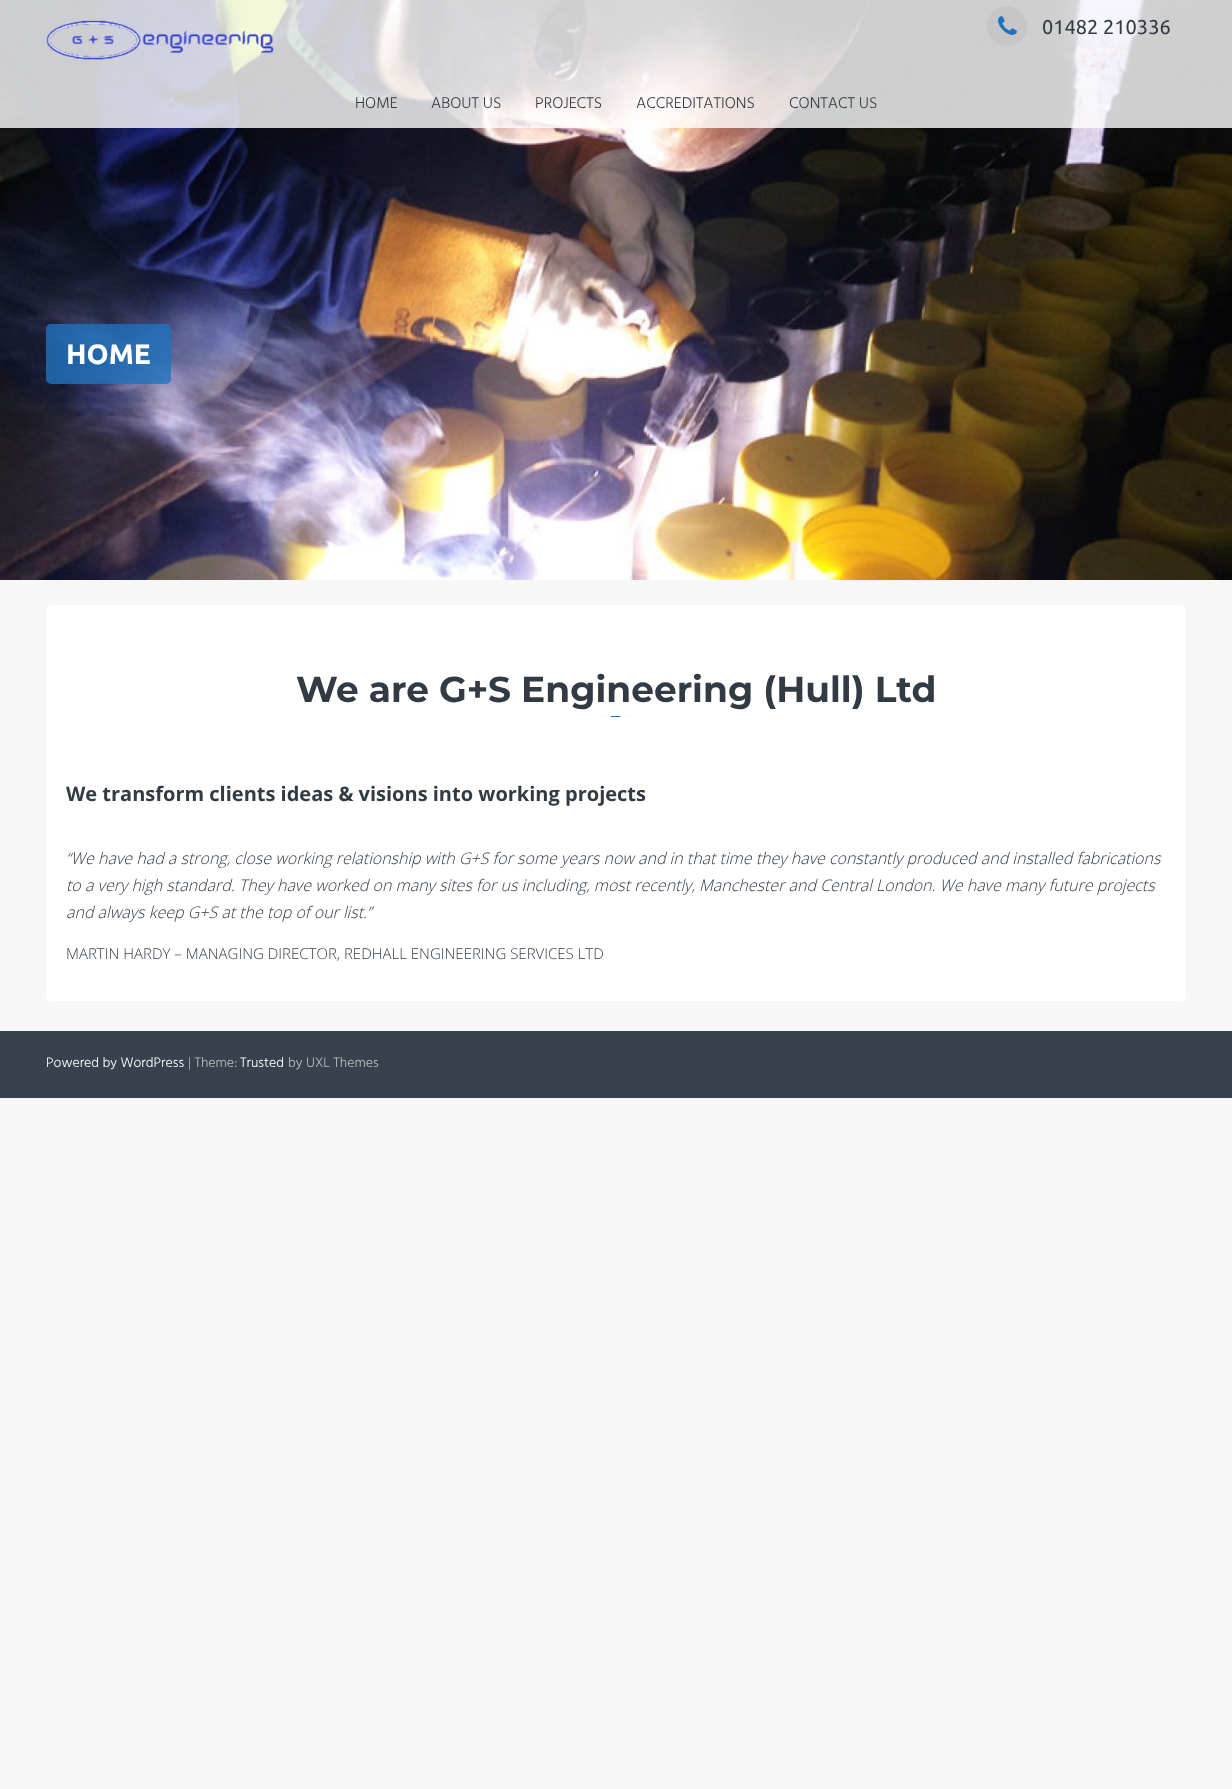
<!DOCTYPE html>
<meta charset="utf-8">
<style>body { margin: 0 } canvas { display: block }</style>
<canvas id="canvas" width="1232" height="1789"></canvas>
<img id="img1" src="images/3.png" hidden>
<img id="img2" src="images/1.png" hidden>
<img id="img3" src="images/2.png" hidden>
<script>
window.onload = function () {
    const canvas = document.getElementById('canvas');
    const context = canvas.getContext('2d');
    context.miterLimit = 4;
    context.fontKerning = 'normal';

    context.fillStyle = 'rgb(247, 247, 247)';
    context.fillRect(0, 0, 1232, 1789);
    context.drawImage(document.getElementById('img1'), 0, 0, 1232, 580);
    context.fillStyle = 'rgba(255, 255, 255, 0.8)';
    context.fillRect(0, 0, 1232, 128);
    context.drawImage(document.getElementById('img2'), 46, 20, 228, 40);
    context.fillStyle = 'rgb(198, 198, 199)';
    context.beginPath();
    context.arc(1007, 26, 20, 0, 2 * Math.PI);
    context.fill();
    context.drawImage(document.getElementById('img3'), 998, 16, 19, 19);
    context.fillStyle = 'rgba(30, 115, 190, 0.8)';
    context.beginPath();
    context.roundRect(46, 324, 125, 60, 5);
    context.fill();
    context.fillStyle = 'rgb(255, 255, 255)';
    context.beginPath();
    context.roundRect(46, 605, 1140, 396, 5);
    context.fill();
    context.fillStyle = 'rgb(30, 115, 190)';
    context.beginPath();
    context.roundRect(611, 716, 10, 1, 0.5);
    context.fill();
    context.fillStyle = 'rgb(207, 225, 241)';
    context.fillRect(620, 716, 1, 1);
    context.fillStyle = 'rgba(0, 0, 0, 0.03)';
    context.fillRect(603, 716, 26, 1);
    context.fillStyle = 'rgb(55, 66, 78)';
    context.fillRect(0, 1031, 1232, 67);
    context.font = '20px Ubuntu';
    context.fillStyle = 'rgb(50, 59, 68)';
    context.fillText('01482 210336', 1042, 34);
    context.font = '300 16px Hind';
    context.fillText('HOME', 355, 108);
    context.fillText('ABOUT US', 431, 108);
    context.fillText('PROJECTS', 535, 108);
    context.fillText('ACCREDITATIONS', 636, 108);
    context.fillText('CONTACT US', 789, 108);
    context.font = 'bold 28px Ubuntu';
    context.fillStyle = 'rgb(255, 255, 255)';
    context.fillText('HOME', 66, 364);
    context.font = 'bold 36px Montserrat';
    context.fillStyle = 'rgb(50, 59, 68)';
    context.fillText('We are G+S Engineering (Hull) Ltd', 296, 702);
    context.font = 'bold 20px Open Sans';
    context.fillText('We transform clients ideas & visions into working projects', 66, 801);
    context.font = 'italic 300 16px Open Sans';
    context.fillText('“We have had a strong, close working relationship with G+S for some years now and in that time they have constantly produced and installed fabrications', 66, 864);
    context.fillText('to a very high standard. They have worked on many sites for us including, most recently, Manchester and Central London. We have many future projects', 66, 891);
    context.fillText('and always keep G+S at the top of our list.”', 66, 918);
    context.font = '300 15px Open Sans';
    context.fillText('MARTIN HARDY – MANAGING DIRECTOR, REDHALL ENGINEERING SERVICES LTD', 66, 959);
    context.font = '300 14px Hind';
    context.fillStyle = 'rgb(255, 255, 255)';
    context.fillText('Powered by WordPress', 46, 1067);
    context.fillStyle = 'rgb(190, 190, 190)';
    context.fillText('| Theme:', 188, 1067);
    context.fillStyle = 'rgb(255, 255, 255)';
    context.fillText('Trusted', 240, 1067);
    context.fillStyle = 'rgb(190, 190, 190)';
    context.fillText('by UXL Themes', 288, 1067);
};
</script>
